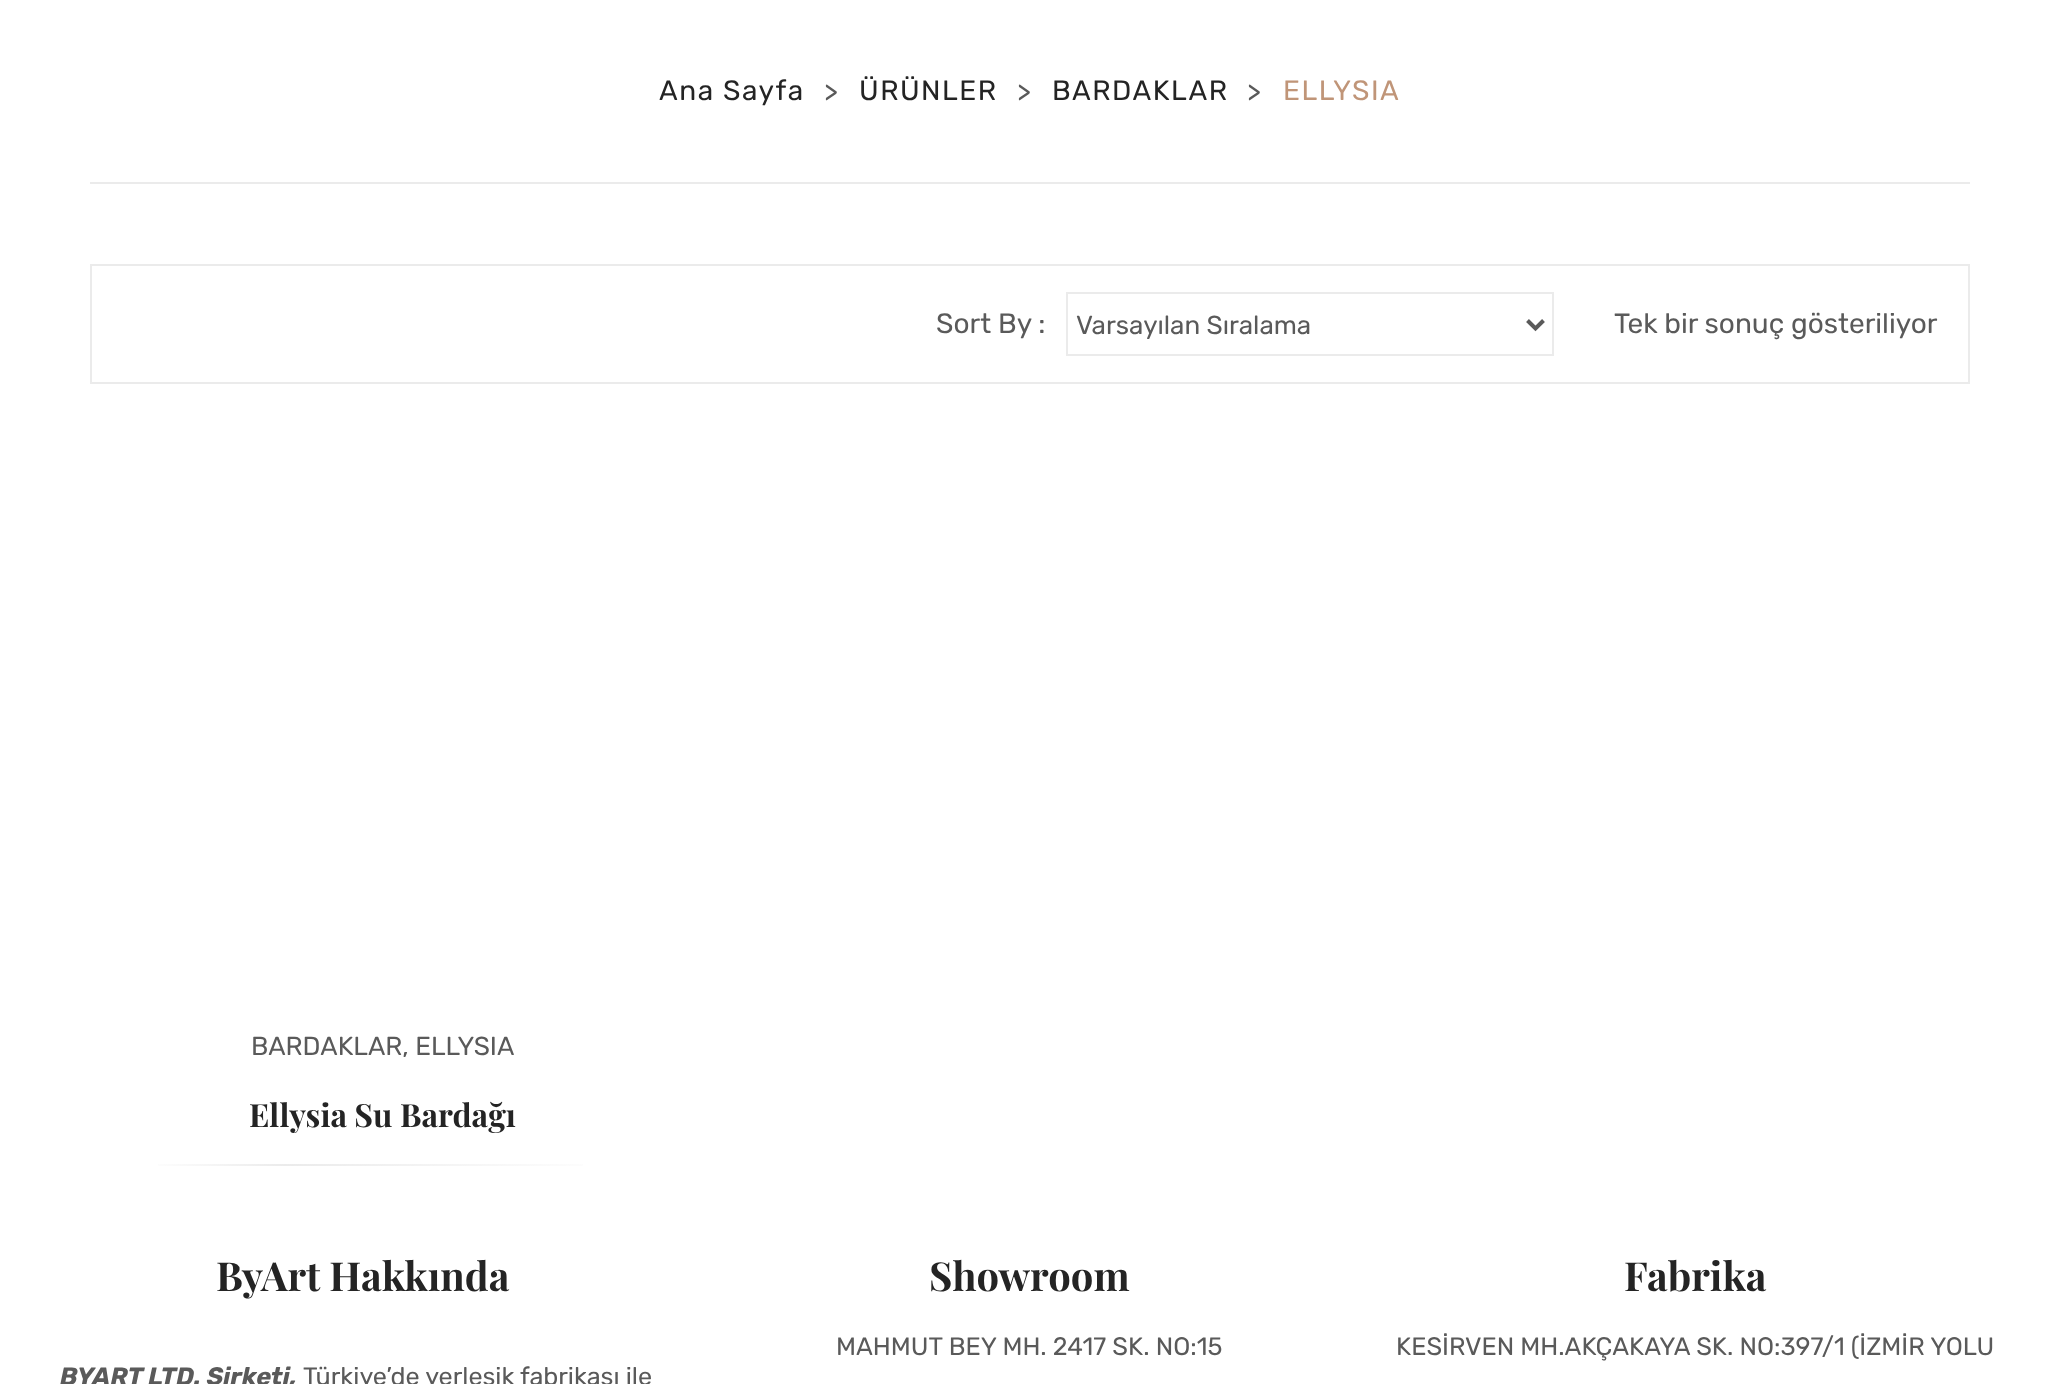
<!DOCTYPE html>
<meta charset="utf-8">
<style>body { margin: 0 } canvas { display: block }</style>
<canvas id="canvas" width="2057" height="1384"></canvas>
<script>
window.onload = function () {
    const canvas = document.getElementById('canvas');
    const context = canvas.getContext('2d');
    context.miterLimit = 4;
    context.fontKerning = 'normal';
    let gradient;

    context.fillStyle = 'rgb(255, 255, 255)';
    context.fillRect(0, 0, 2057, 1384);
    context.fillStyle = 'rgb(235, 235, 235)';
    context.fillRect(90, 182, 1880, 2);
    context.strokeStyle = 'rgb(235, 235, 235)';
    context.lineWidth = 2;
    context.strokeRect(91, 265, 1878, 118);
    context.strokeRect(1067, 293, 486, 62);
    context.beginPath();
    context.moveTo(1527.5, 320.5);
    context.lineTo(1535.5, 328.5);
    context.lineTo(1543.5, 320.5);
    context.strokeStyle = 'rgb(90, 90, 90)';
    context.lineWidth = 4;
    context.stroke();
    gradient = context.createLinearGradient(140, 1165, 626, 1165);
    gradient.addColorStop(0, 'rgb(255, 255, 255)');
    gradient.addColorStop(0.3, 'rgb(235, 235, 235)');
    gradient.addColorStop(1, 'rgb(255, 255, 255)');
    context.fillStyle = gradient;
    context.fillRect(158, 1164, 425, 2);
    context.letterSpacing = '1.5px';
    context.font = '28px Rubik';
    context.fillStyle = 'rgb(36, 36, 36)';
    context.fillText('Ana Sayfa', 659, 100);
    context.fillStyle = 'rgb(90, 90, 90)';
    context.fillText('>', 824, 101);
    context.fillStyle = 'rgb(36, 36, 36)';
    context.fillText('ÜRÜNLER', 859, 100);
    context.fillStyle = 'rgb(90, 90, 90)';
    context.fillText('>', 1017, 101);
    context.fillStyle = 'rgb(36, 36, 36)';
    context.fillText('BARDAKLAR', 1052, 100);
    context.fillStyle = 'rgb(90, 90, 90)';
    context.fillText('>', 1247, 101);
    context.fillStyle = 'rgb(192, 149, 120)';
    context.fillText('ELLYSIA', 1283, 100);
    context.letterSpacing = '0px';
    context.fillStyle = 'rgb(90, 90, 90)';
    context.fillText('Sort By :', 936, 333);
    context.font = '26px Rubik';
    context.fillText('Varsayılan Sıralama', 1076, 334);
    context.font = '28px Rubik';
    context.fillText('Tek bir sonuç gösteriliyor', 1614, 333);
    context.font = '26px Rubik';
    context.fillText('BARDAKLAR, ELLYSIA', 251, 1055);
    context.font = 'bold 32px Playfair Display';
    context.fillStyle = 'rgb(36, 36, 36)';
    context.fillText('Ellysia Su Bardağı', 249, 1127);
    context.font = 'bold 40px Playfair Display';
    context.fillText('ByArt Hakkında', 216, 1291);
    context.font = 'italic bold 25.2px Rubik';
    context.fillStyle = 'rgb(90, 90, 90)';
    context.fillText('BYART LTD. Şirketi,', 60, 1385);
    context.font = '25.2px Rubik';
    context.fillText('Türkiye’de yerleşik fabrikası ile', 303, 1385);
    context.font = 'bold 40px Playfair Display';
    context.fillStyle = 'rgb(36, 36, 36)';
    context.fillText('Showroom', 929, 1291);
    context.font = '25.2px Rubik';
    context.fillStyle = 'rgb(90, 90, 90)';
    context.fillText('MAHMUT BEY MH. 2417 SK. NO:15', 836, 1355);
    context.font = 'bold 40px Playfair Display';
    context.fillStyle = 'rgb(36, 36, 36)';
    context.fillText('Fabrika', 1624, 1291);
    context.font = '25.2px Rubik';
    context.fillStyle = 'rgb(90, 90, 90)';
    context.fillText('KESİRVEN MH.AKÇAKAYA SK. NO:397/1 (İZMİR YOLU', 1396, 1355);
};
</script>
